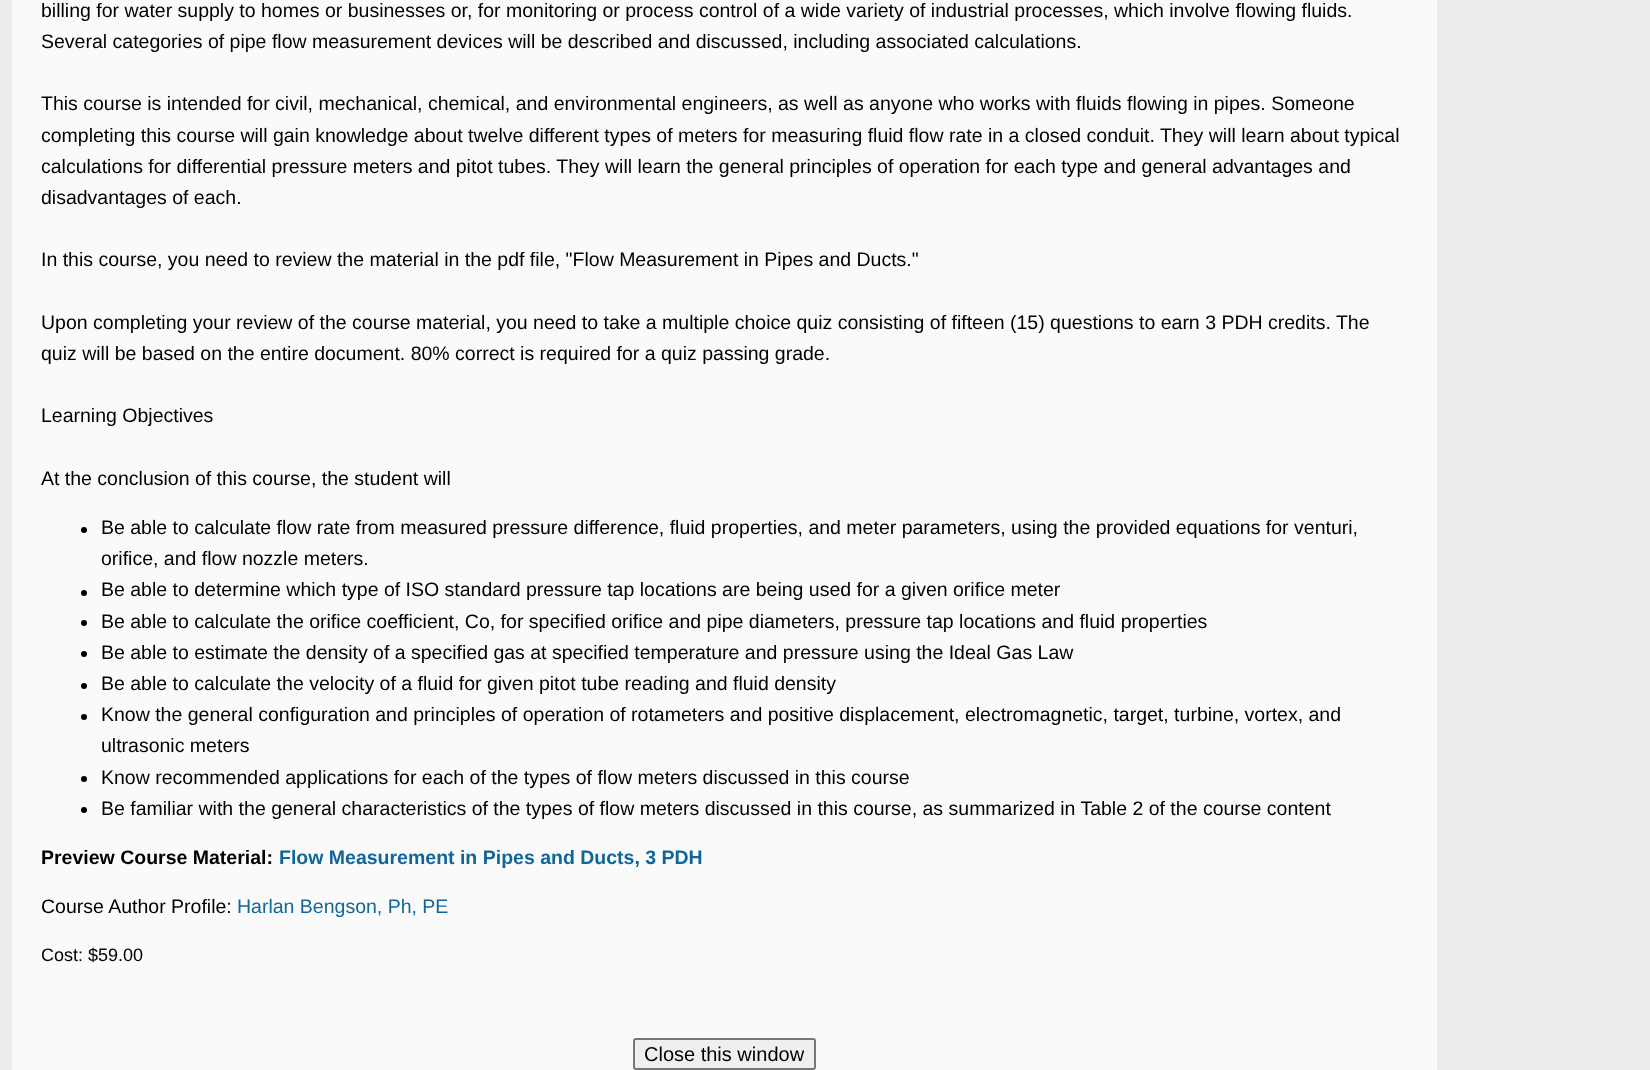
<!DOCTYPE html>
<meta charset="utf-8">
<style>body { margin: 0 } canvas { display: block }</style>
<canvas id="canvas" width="1650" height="1070"></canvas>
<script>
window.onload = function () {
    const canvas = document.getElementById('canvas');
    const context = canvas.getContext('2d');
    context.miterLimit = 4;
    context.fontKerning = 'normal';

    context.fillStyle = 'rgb(236, 236, 236)';
    context.fillRect(0, 0, 1650, 1070);
    context.fillStyle = 'rgb(250, 250, 250)';
    context.fillRect(12, 0, 1425, 1070);
    context.fillStyle = 'rgb(0, 0, 0)';
    context.beginPath();
    context.arc(84, 530, 3, 0, 2 * Math.PI);
    context.fill();
    context.beginPath();
    context.arc(84, 593, 3, 0, 2 * Math.PI);
    context.fill();
    context.beginPath();
    context.arc(84, 623, 3, 0, 2 * Math.PI);
    context.fill();
    context.beginPath();
    context.arc(84, 654, 3, 0, 2 * Math.PI);
    context.fill();
    context.beginPath();
    context.arc(84, 686, 3, 0, 2 * Math.PI);
    context.fill();
    context.beginPath();
    context.arc(84, 717, 3, 0, 2 * Math.PI);
    context.fill();
    context.beginPath();
    context.arc(84, 779, 3, 0, 2 * Math.PI);
    context.fill();
    context.beginPath();
    context.arc(84, 810, 3, 0, 2 * Math.PI);
    context.fill();
    context.fillStyle = 'rgb(239, 239, 239)';
    context.beginPath();
    context.roundRect(634, 1039, 181, 30, 2);
    context.fill();
    context.strokeStyle = 'rgb(118, 118, 118)';
    context.lineWidth = 2;
    context.stroke();
    context.font = '19.5px Liberation Sans';
    context.fillStyle = 'rgb(0, 0, 0)';
    context.fillText('billing for water supply to homes or businesses or, for monitoring or process control of a wide variety of industrial processes, which involve flowing fluids.', 41, 17);
    context.fillText('Several categories of pipe flow measurement devices will be described and discussed, including associated calculations.', 41, 48);
    context.fillText('This course is intended for civil, mechanical, chemical, and environmental engineers, as well as anyone who works with fluids flowing in pipes. Someone', 41, 110);
    context.fillText('completing this course will gain knowledge about twelve different types of meters for measuring fluid flow rate in a closed conduit. They will learn about typical', 41, 142);
    context.fillText('calculations for differential pressure meters and pitot tubes. They will learn the general principles of operation for each type and general advantages and', 41, 173);
    context.fillText('disadvantages of each.', 41, 204);
    context.fillText('In this course, you need to review the material in the pdf file, "Flow Measurement in Pipes and Ducts."', 41, 266);
    context.fillText('Upon completing your review of the course material, you need to take a multiple choice quiz consisting of fifteen (15) questions to earn 3 PDH credits. The', 41, 329);
    context.fillText('quiz will be based on the entire document. 80% correct is required for a quiz passing grade.', 41, 360);
    context.fillText('Learning Objectives', 41, 422);
    context.fillText('At the conclusion of this course, the student will', 41, 485);
    context.fillText('Be able to calculate flow rate from measured pressure difference, fluid properties, and meter parameters, using the provided equations for venturi,', 101, 534);
    context.fillText('orifice, and flow nozzle meters.', 101, 565);
    context.fillText('Be able to determine which type of ISO standard pressure tap locations are being used for a given orifice meter', 101, 596);
    context.fillText('Be able to calculate the orifice coefficient, Co, for specified orifice and pipe diameters, pressure tap locations and fluid properties', 101, 628);
    context.fillText('Be able to estimate the density of a specified gas at specified temperature and pressure using the Ideal Gas Law', 101, 659);
    context.fillText('Be able to calculate the velocity of a fluid for given pitot tube reading and fluid density', 101, 690);
    context.fillText('Know the general configuration and principles of operation of rotameters and positive displacement, electromagnetic, target, turbine, vortex, and', 101, 721);
    context.fillText('ultrasonic meters', 101, 752);
    context.fillText('Know recommended applications for each of the types of flow meters discussed in this course', 101, 784);
    context.fillText('Be familiar with the general characteristics of the types of flow meters discussed in this course, as summarized in Table 2 of the course content', 101, 815);
    context.font = 'bold 19.5px Liberation Sans';
    context.fillText('Preview Course Material:', 41, 864);
    context.fillStyle = 'rgb(17, 102, 153)';
    context.fillText('Flow Measurement in Pipes and Ducts, 3 PDH', 279, 864);
    context.font = '19.5px Liberation Sans';
    context.fillStyle = 'rgb(0, 0, 0)';
    context.fillText('Course Author Profile:', 41, 913);
    context.fillStyle = 'rgb(17, 102, 153)';
    context.fillText('Harlan Bengson, Ph, PE', 237, 913);
    context.font = '18px Liberation Sans';
    context.fillStyle = 'rgb(0, 0, 0)';
    context.fillText('Cost: $59.00', 41, 961);
    context.font = '20px Liberation Sans';
    context.fillText('Close this window', 644, 1061);
};
</script>
